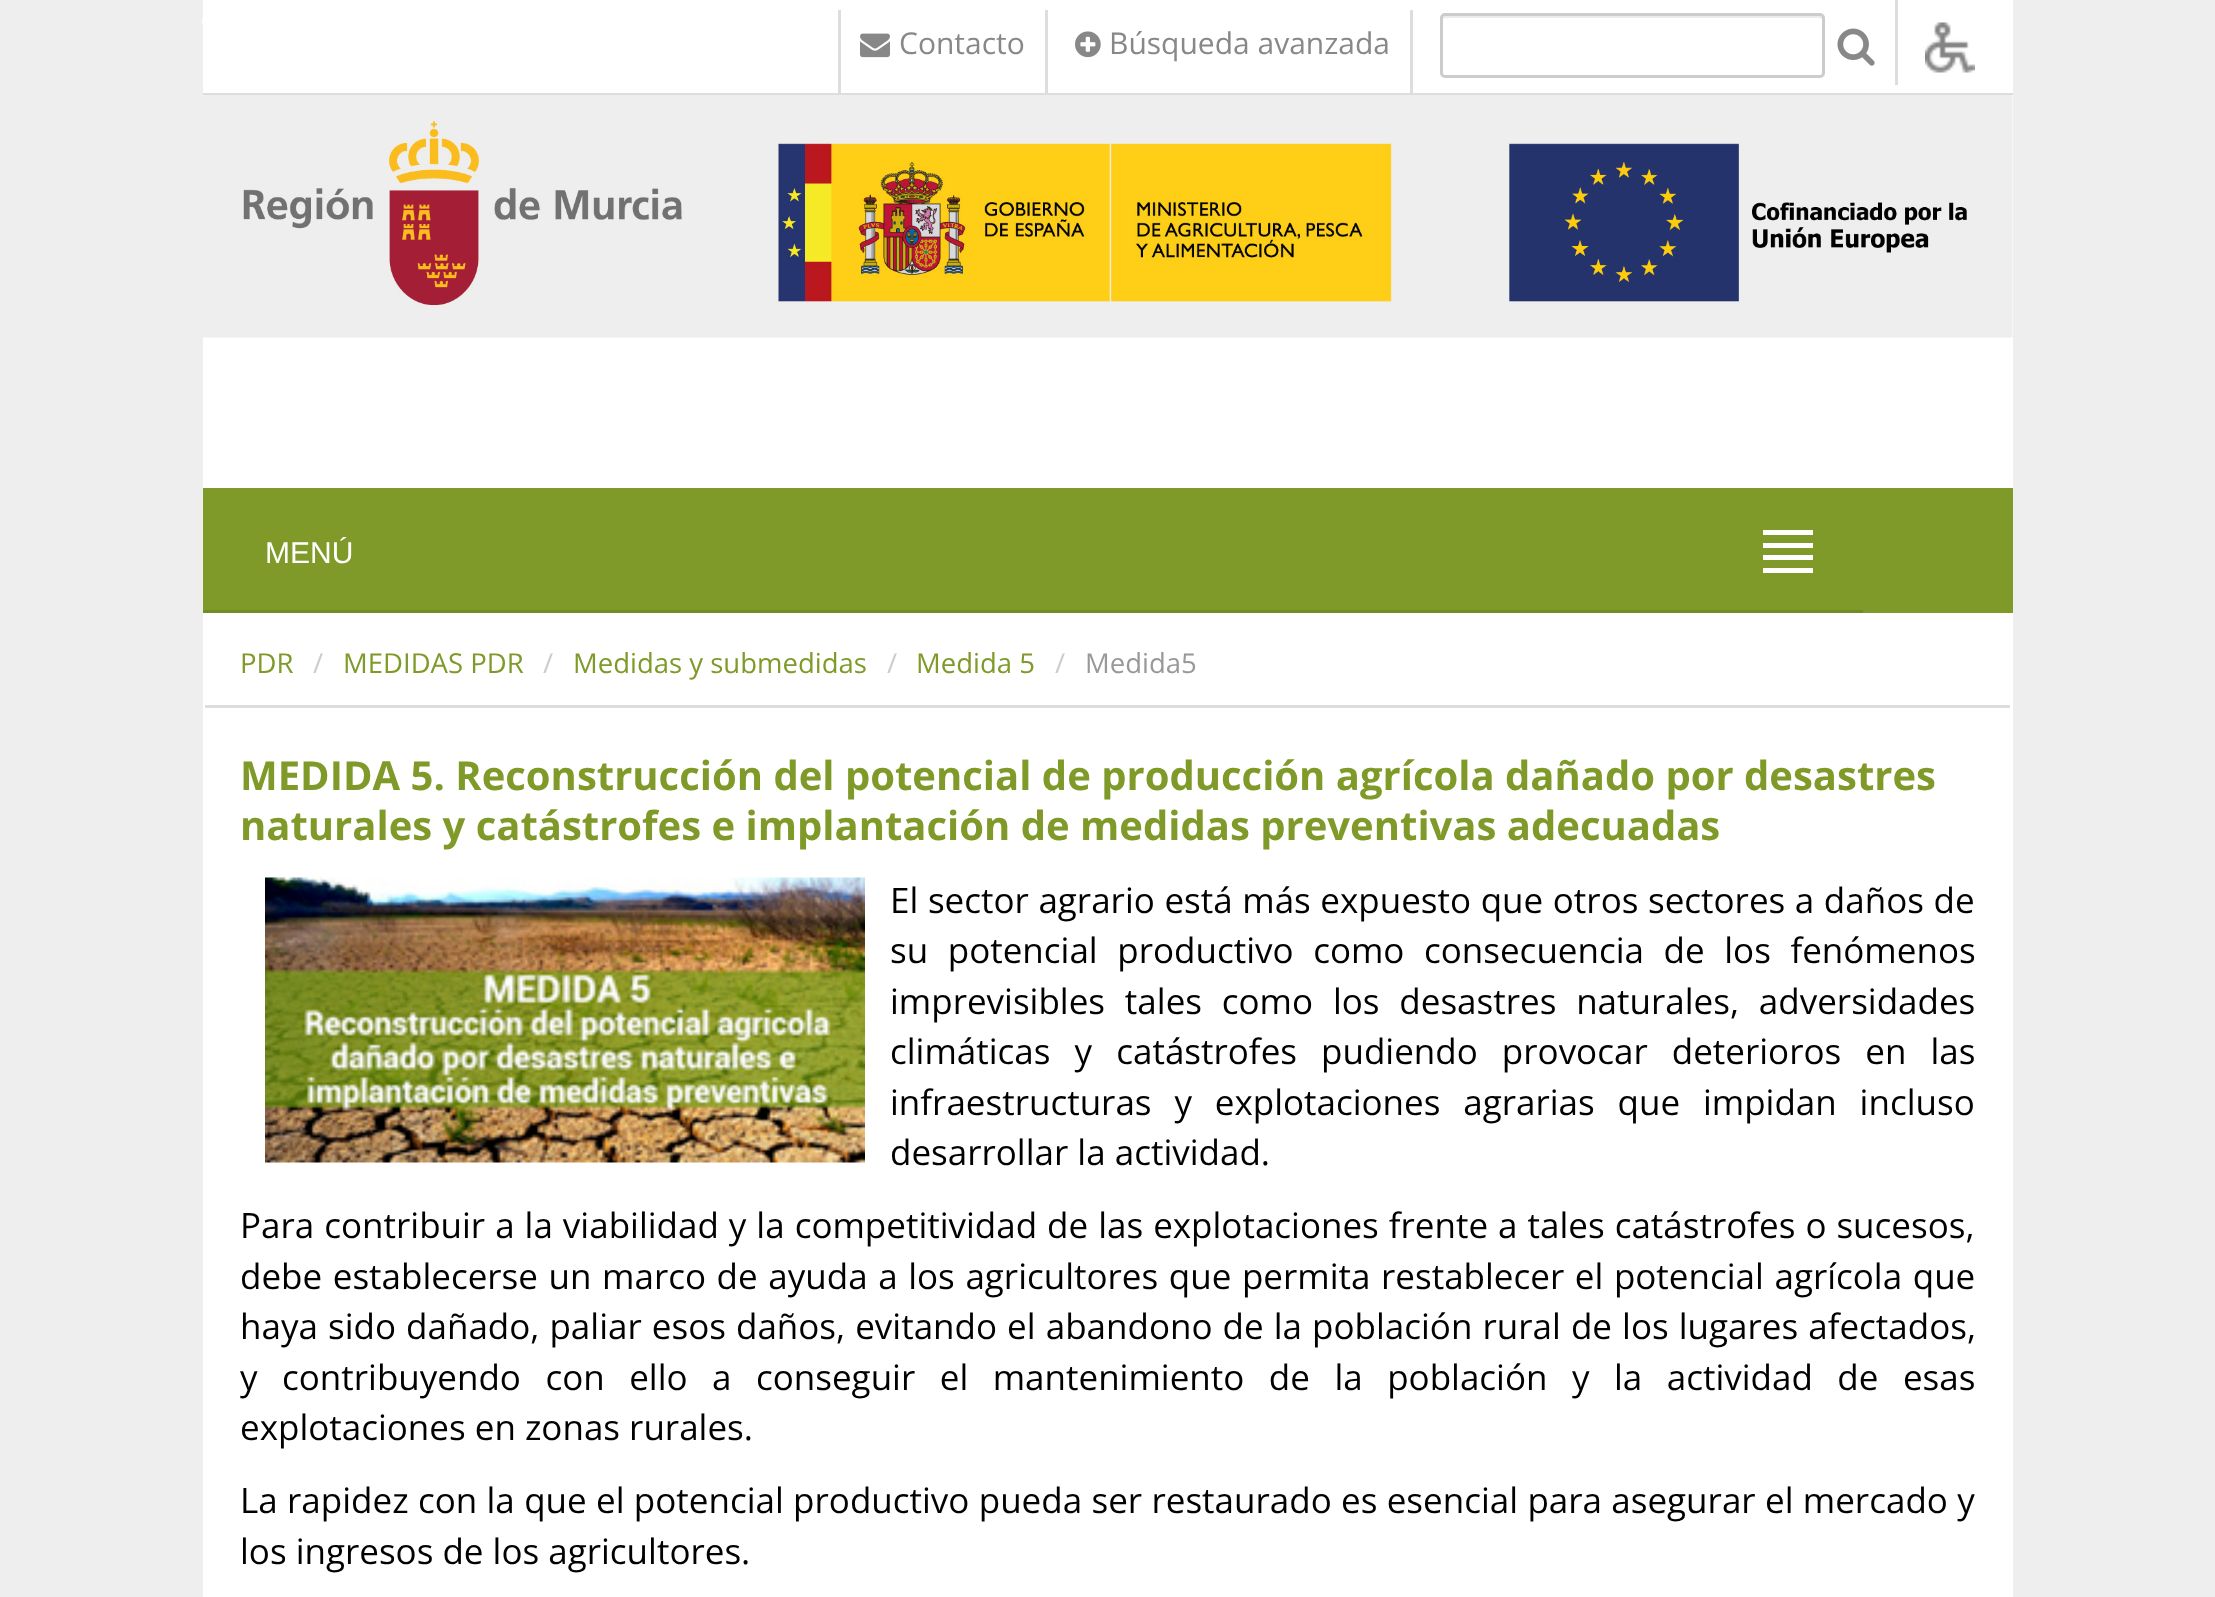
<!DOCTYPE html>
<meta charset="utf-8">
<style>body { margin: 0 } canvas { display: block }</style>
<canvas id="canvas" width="2215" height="1597"></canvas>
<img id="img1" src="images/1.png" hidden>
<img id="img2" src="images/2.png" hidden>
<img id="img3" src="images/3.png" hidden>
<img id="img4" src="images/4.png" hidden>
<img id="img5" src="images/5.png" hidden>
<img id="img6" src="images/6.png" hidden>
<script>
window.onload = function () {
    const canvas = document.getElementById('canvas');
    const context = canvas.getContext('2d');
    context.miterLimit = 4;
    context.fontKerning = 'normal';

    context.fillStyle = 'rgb(238, 238, 238)';
    context.fillRect(0, 0, 2215, 1597);
    context.fillStyle = 'rgb(255, 255, 255)';
    context.fillRect(203, 0, 1810, 1597);
    context.fillStyle = 'rgb(221, 221, 221)';
    context.fillRect(203, 93, 1810, 2);
    context.fillStyle = 'rgb(255, 255, 255)';
    context.beginPath();
    context.moveTo(204, 28);
    context.bezierCurveTo(195.5, 13.5, 218, 0.5, 226.5, 15.5);
    context.bezierCurveTo(235, 30, 213, 43, 204, 28);
    context.closePath();
    context.moveTo(207.5, 17);
    context.bezierCurveTo(204, 23, 208.5, 31, 215.5, 31);
    context.lineTo(215.5, 12.5);
    context.bezierCurveTo(212, 12.5, 209, 14.5, 207.5, 17);
    context.closePath();
    context.fill();
    context.fillStyle = 'rgb(221, 221, 221)';
    context.fillRect(1045, 10, 3, 85);
    context.fillRect(838, 10, 3, 85);
    context.drawImage(document.getElementById('img1'), 860, 33, 30, 25);
    context.fillRect(1410, 10, 3, 85);
    context.drawImage(document.getElementById('img2'), 1075, 31, 26, 27);
    context.fillRect(1895, 0, 3, 85);
    context.fillStyle = 'rgb(236, 236, 236)';
    context.beginPath();
    context.moveTo(1445, 18);
    context.lineTo(1820, 18);
    context.bezierCurveTo(1821, 18, 1822, 19, 1822, 20);
    context.lineTo(1822, 75);
    context.bezierCurveTo(1823, 74, 1823, 73, 1823, 72);
    context.lineTo(1823, 18);
    context.bezierCurveTo(1823, 16, 1822, 15, 1820, 15);
    context.lineTo(1446, 15);
    context.bezierCurveTo(1444, 15, 1443, 16, 1443, 18);
    context.lineTo(1443, 19);
    context.closePath();
    context.fill();
    context.beginPath();
    context.roundRect(1441.5, 14.5, 382, 62, 3.5);
    context.strokeStyle = 'rgb(204, 204, 204)';
    context.lineWidth = 3;
    context.stroke();
    context.drawImage(document.getElementById('img3'), 1837, 28, 38, 38);
    context.drawImage(document.getElementById('img4'), 1925, 22, 50, 51);
    context.drawImage(document.getElementById('img5'), 203, 95, 1810, 243);
    context.fillStyle = 'rgb(127, 154, 41)';
    context.fillRect(203, 488, 1810, 125);
    context.fillStyle = 'rgb(114, 139, 37)';
    context.fillRect(203, 610, 1660, 3);
    context.fillStyle = 'rgb(255, 255, 255)';
    context.fillRect(1763, 530, 50, 5);
    context.fillRect(1763, 543, 50, 5);
    context.fillRect(1763, 555, 50, 5);
    context.fillRect(1763, 568, 50, 5);
    context.fillStyle = 'rgb(221, 221, 221)';
    context.fillRect(205, 705, 1805, 3);
    context.drawImage(document.getElementById('img6'), 265, 877, 600, 286);
    context.font = '30px Open Sans';
    context.fillStyle = 'rgb(136, 136, 136)';
    context.fillText('Contacto', 899, 54);
    context.fillText('Búsqueda avanzada', 1109, 54);
    context.font = '30px Liberation Sans';
    context.fillStyle = 'rgb(255, 255, 255)';
    context.fillText('MENÚ', 265, 563);
    context.font = '27.5px Open Sans';
    context.fillStyle = 'rgb(127, 154, 41)';
    context.fillText('PDR', 240, 673);
    context.fillStyle = 'rgb(204, 204, 204)';
    context.fillText('/', 313, 673);
    context.fillStyle = 'rgb(127, 154, 41)';
    context.fillText('MEDIDAS PDR', 343, 673);
    context.fillStyle = 'rgb(204, 204, 204)';
    context.fillText('/', 543, 673);
    context.fillStyle = 'rgb(127, 154, 41)';
    context.fillText('Medidas y submedidas', 573, 673);
    context.fillStyle = 'rgb(204, 204, 204)';
    context.fillText('/', 887, 673);
    context.fillStyle = 'rgb(127, 154, 41)';
    context.fillText('Medida 5', 916, 673);
    context.fillStyle = 'rgb(204, 204, 204)';
    context.fillText('/', 1055, 673);
    context.fillStyle = 'rgb(153, 153, 153)';
    context.fillText('Medida5', 1085, 673);
    context.font = 'bold 40px Open Sans';
    context.fillStyle = 'rgb(127, 154, 41)';
    context.fillText('MEDIDA 5. Reconstrucción del potencial de producción agrícola dañado por desastres', 240, 790);
    context.fillText('naturales y catástrofes e implantación de medidas preventivas adecuadas', 240, 840);
    context.wordSpacing = '0.5px';
    context.font = '35px Open Sans';
    context.fillStyle = 'rgb(0, 0, 0)';
    context.fillText('El sector agrario está más expuesto que otros sectores a daños de', 890, 913);
    context.wordSpacing = '10.5px';
    context.fillText('su potencial productivo como consecuencia de los fenómenos', 890, 963);
    context.wordSpacing = '10.75px';
    context.fillText('imprevisibles tales como los desastres naturales, adversidades', 890, 1014);
    context.wordSpacing = '15px';
    context.fillText('climáticas y catástrofes pudiendo provocar deterioros en las', 890, 1064);
    context.wordSpacing = '13.75px';
    context.fillText('infraestructuras y explotaciones agrarias que impidan incluso', 890, 1115);
    context.wordSpacing = '0px';
    context.fillText('desarrollar la actividad.', 890, 1165);
    context.wordSpacing = '0.9px';
    context.fillText('Para contribuir a la viabilidad y la competitividad de las explotaciones frente a tales catástrofes o sucesos,', 240, 1238);
    context.wordSpacing = '1.5px';
    context.fillText('debe establecerse un marco de ayuda a los agricultores que permita restablecer el potencial agrícola que', 240, 1289);
    context.wordSpacing = '1px';
    context.fillText('haya sido dañado, paliar esos daños, evitando el abandono de la población rural de los lugares afectados,', 240, 1339);
    context.wordSpacing = '15.4px';
    context.fillText('y contribuyendo con ello a conseguir el mantenimiento de la población y la actividad de esas', 240, 1390);
    context.wordSpacing = '0px';
    context.fillText('explotaciones en zonas rurales.', 240, 1440);
    context.wordSpacing = '0.25px';
    context.fillText('La rapidez con la que el potencial productivo pueda ser restaurado es esencial para asegurar el mercado y', 240, 1513);
    context.wordSpacing = '0px';
    context.fillText('los ingresos de los agricultores.', 240, 1564);
};
</script>
